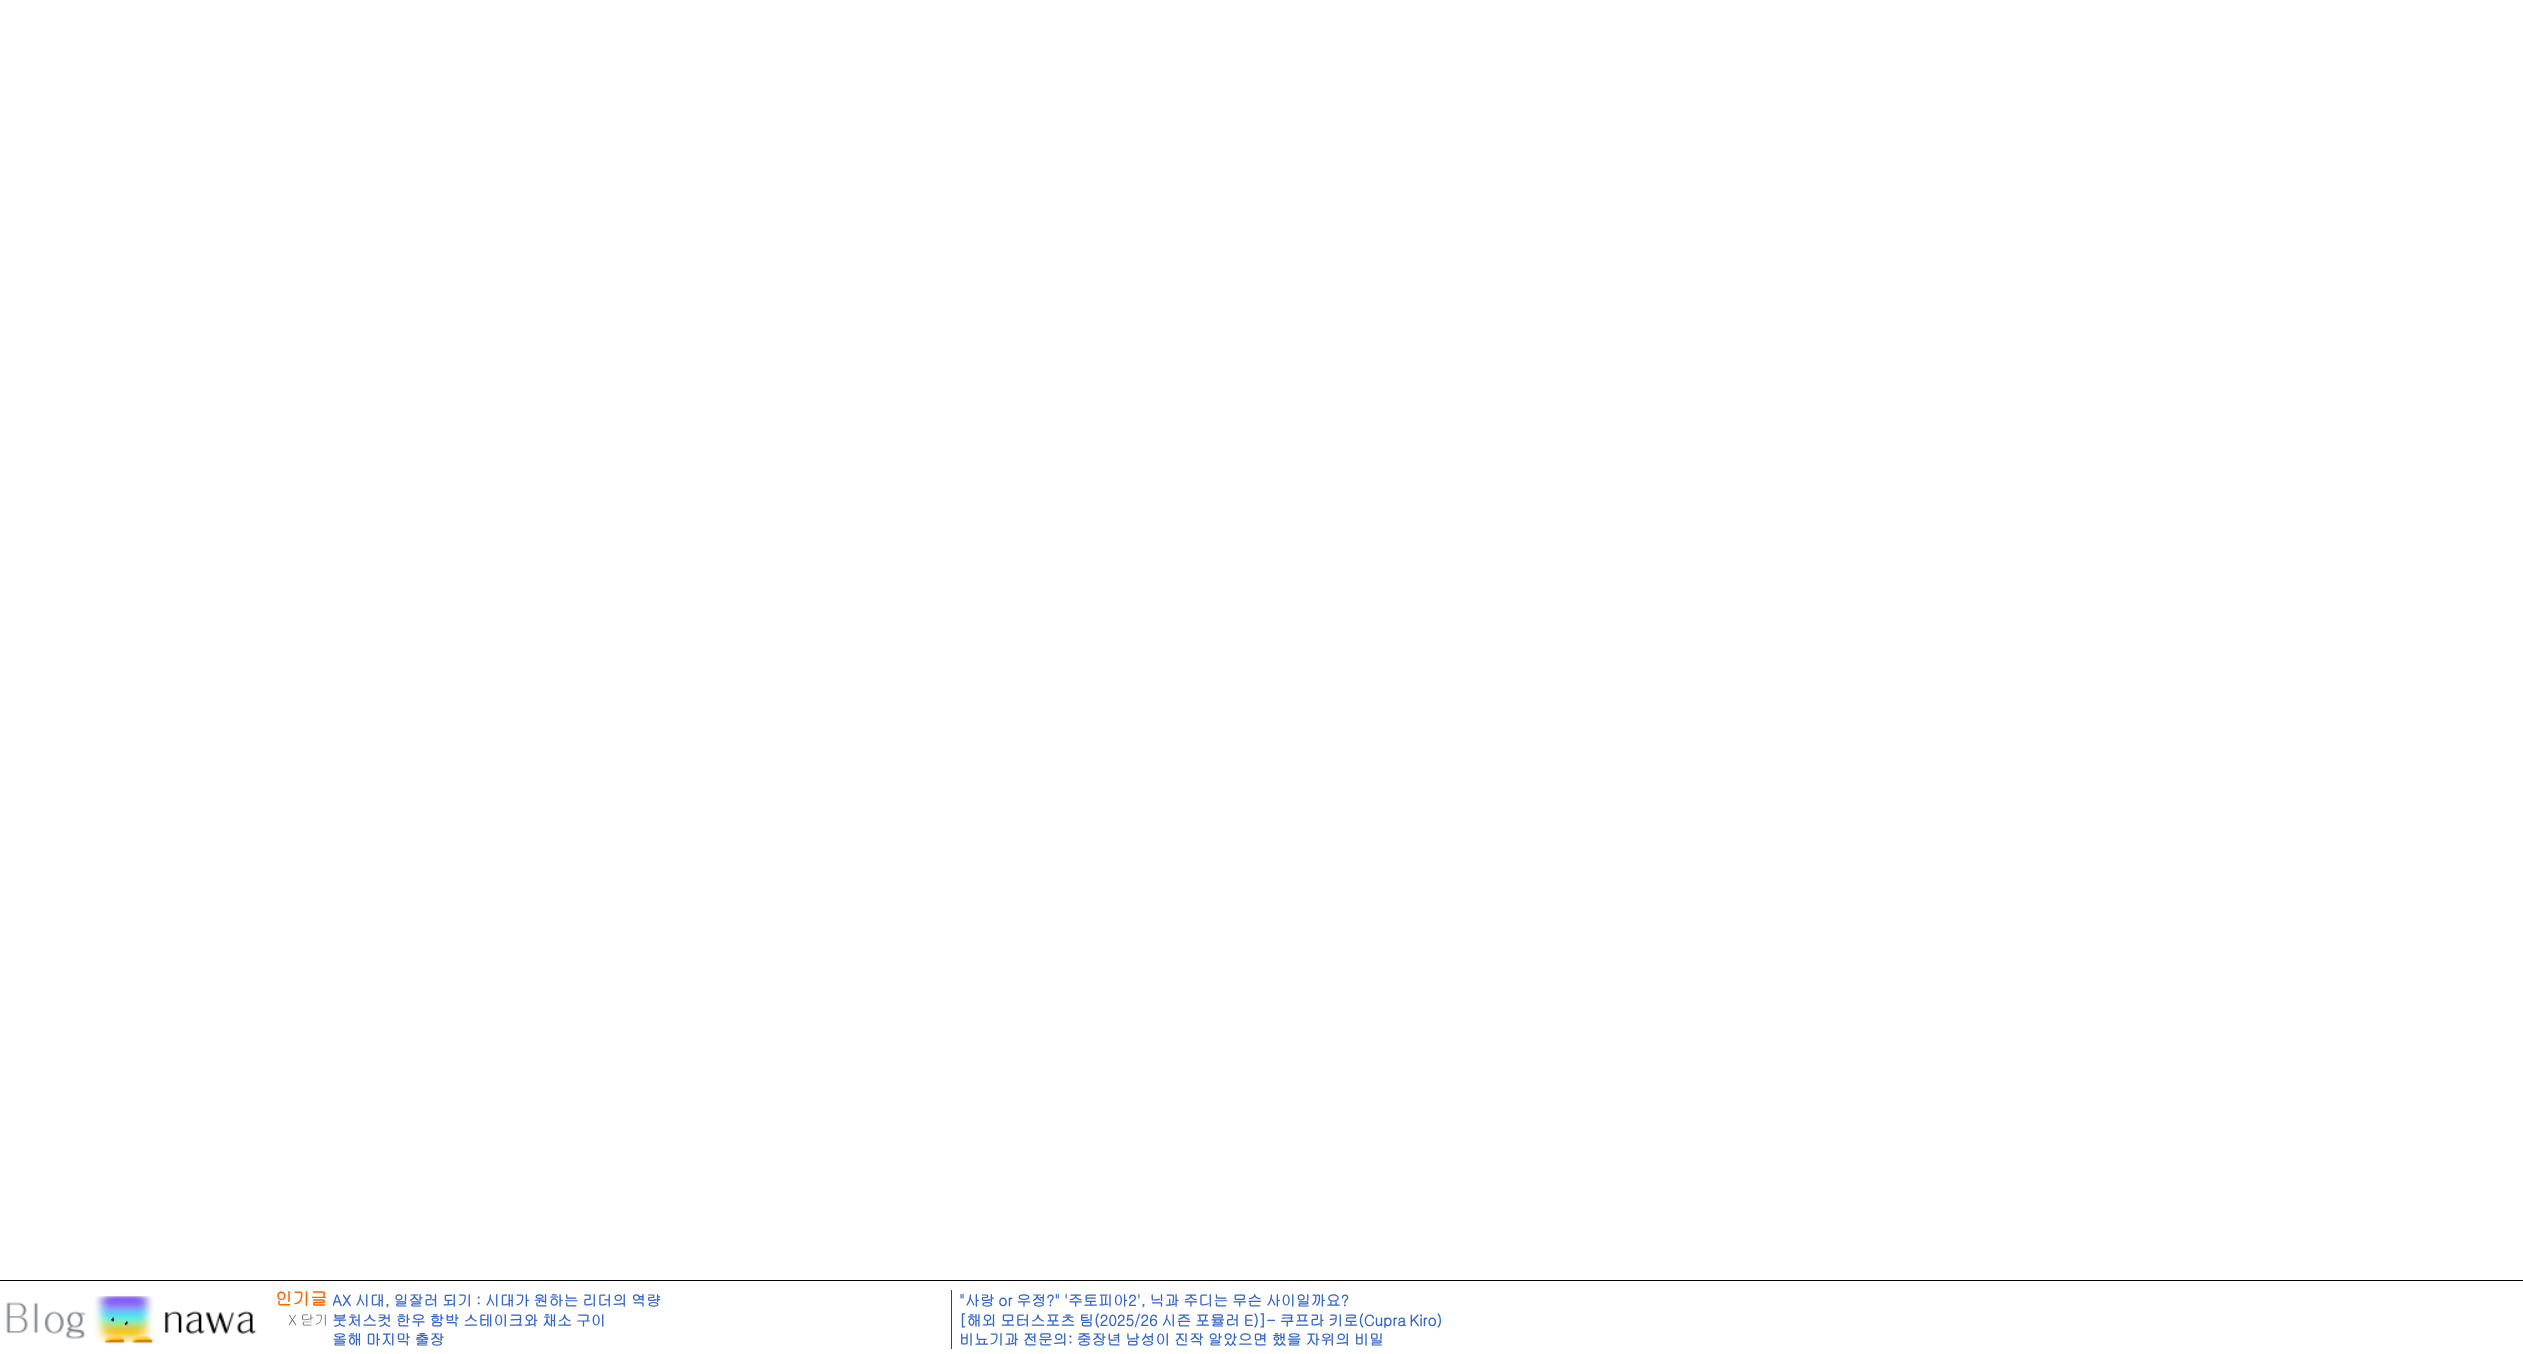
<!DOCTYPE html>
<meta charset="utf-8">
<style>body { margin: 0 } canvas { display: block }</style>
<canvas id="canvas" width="2523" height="1354"></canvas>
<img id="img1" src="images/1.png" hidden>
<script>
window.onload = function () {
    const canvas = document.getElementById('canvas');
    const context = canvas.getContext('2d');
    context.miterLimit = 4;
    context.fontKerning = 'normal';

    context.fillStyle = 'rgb(255, 255, 255)';
    context.fillRect(0, 0, 2523, 1354);
    context.fillStyle = 'rgb(0, 0, 0)';
    context.fillRect(0, 1280, 2523, 1);
    context.drawImage(document.getElementById('img1'), 6, 1296, 251, 47);
    context.fillStyle = 'rgb(51, 51, 204)';
    context.fillRect(951, 1290, 1, 59);
    context.font = 'bold 17.5px Gulim';
    context.fillStyle = 'rgb(255, 102, 0)';
    context.fillText('인기글', 275, 1305);
    context.wordSpacing = '-1.25px';
    context.font = '14px Gulim';
    context.fillStyle = 'rgb(102, 102, 102)';
    context.fillText('X 닫기', 288, 1325);
    context.save();
    context.beginPath();
    context.rect(333, 1290, 618, 20);
    context.clip();
    context.font = 'bold 15px Gulim';
    context.fillStyle = 'rgb(51, 102, 204)';
    context.fillText('AX 시대, 일잘러 되기 : 시대가 원하는 리더의 역량', 332, 1306);
    context.restore();
    context.font = 'bold 15px Gulim';
    context.fillStyle = 'rgb(51, 102, 204)';
    context.fillText('붓처스컷 한우 함박 스테이크와 채소 구이', 332, 1326);
    context.fillText('올해 마지막 출장', 332, 1345);
    context.fillText('"사랑 or 우정?" \'주토피아2\', 닉과 주디는 무슨 사이일까요?', 959, 1306);
    context.fillText('[해외 모터스포츠 팀(2025/26 시즌 포뮬러 E)]- 쿠프라 키로(Cupra Kiro)', 959, 1326);
    context.fillText('비뇨기과 전문의: 중장년 남성이 진작 알았으면 했을 자위의 비밀', 959, 1345);
};
</script>
